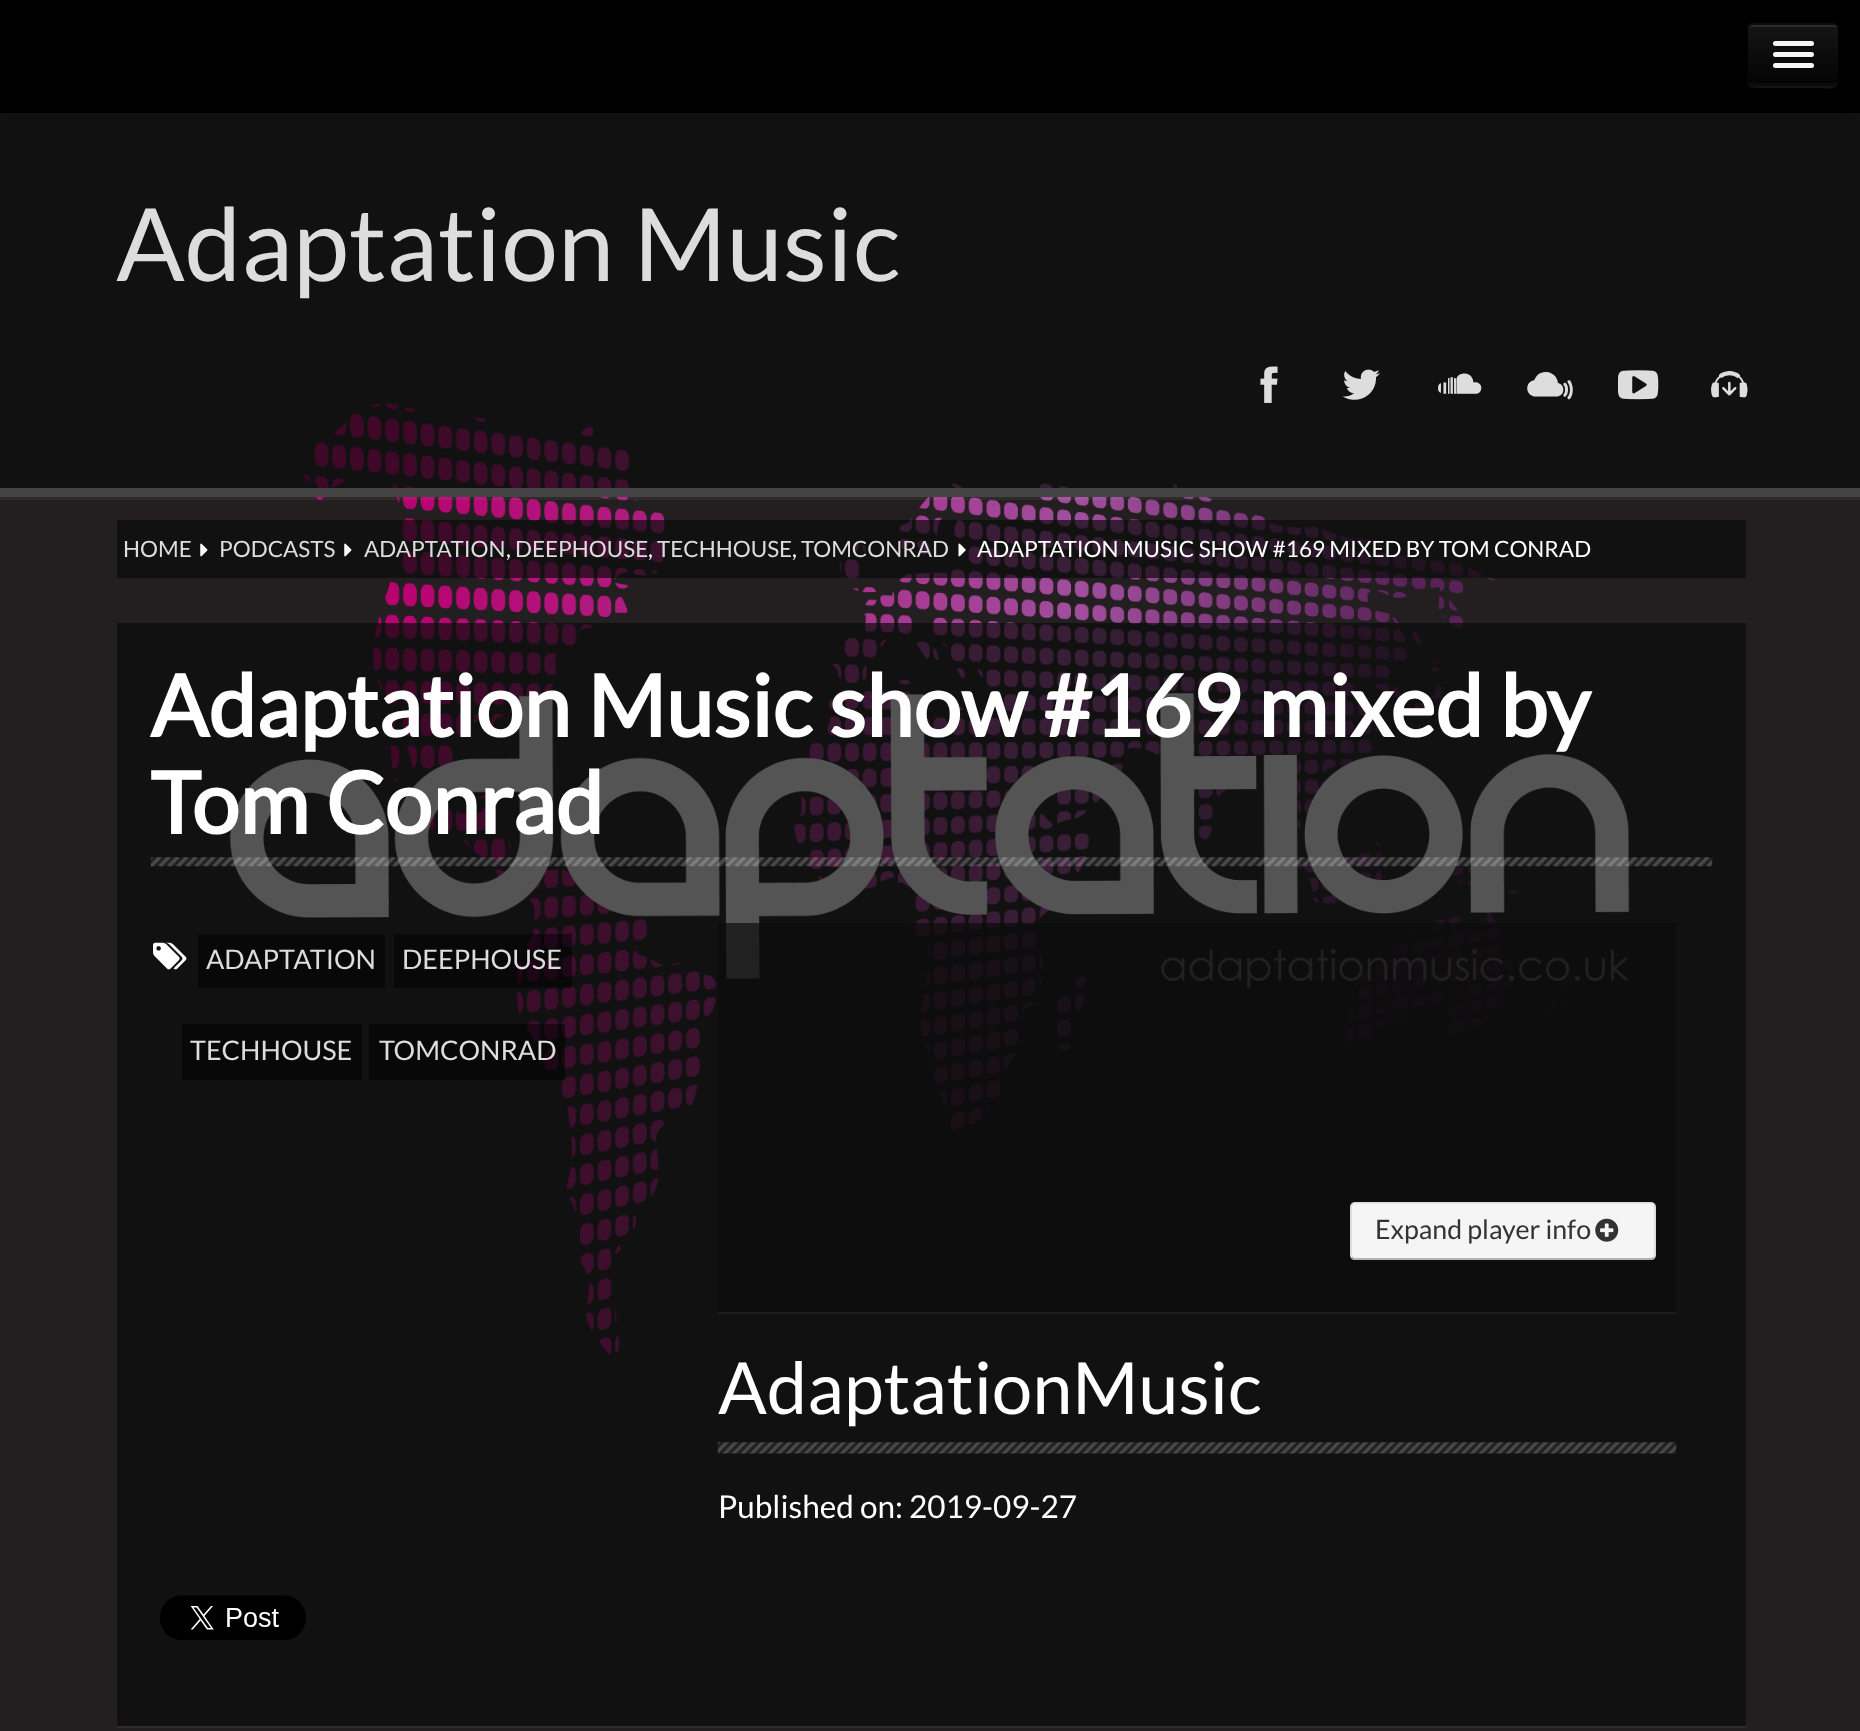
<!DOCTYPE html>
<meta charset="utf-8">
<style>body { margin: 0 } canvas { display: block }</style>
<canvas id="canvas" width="1860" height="1731"></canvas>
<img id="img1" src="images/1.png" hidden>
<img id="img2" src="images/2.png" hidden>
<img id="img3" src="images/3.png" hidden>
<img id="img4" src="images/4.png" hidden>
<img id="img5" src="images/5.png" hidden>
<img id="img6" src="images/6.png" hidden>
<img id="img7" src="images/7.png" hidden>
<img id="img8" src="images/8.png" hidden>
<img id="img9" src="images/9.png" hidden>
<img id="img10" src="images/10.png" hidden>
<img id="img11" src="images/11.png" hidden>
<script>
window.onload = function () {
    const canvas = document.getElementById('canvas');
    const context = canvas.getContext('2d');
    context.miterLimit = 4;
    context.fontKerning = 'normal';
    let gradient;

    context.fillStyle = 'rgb(255, 255, 255)';
    context.fillRect(0, 0, 1860, 1731);
    context.drawImage(document.getElementById('img1'), 0, 113, 1860, 1618);
    context.fillStyle = 'rgba(0, 0, 0, 0.1)';
    context.filter = 'blur(11px)';
    context.beginPath();
    context.rect(0, 2, 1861, 113);
    context.fill();
    context.filter = 'none';
    context.fillStyle = 'rgb(0, 0, 0)';
    context.fillRect(0, 0, 1860, 113);
    context.fillStyle = 'rgb(19, 19, 19)';
    context.beginPath();
    context.moveTo(1748, 28);
    context.lineTo(1748, 65);
    context.bezierCurveTo(1748, 89, 1743, 88, 1766, 88);
    context.lineTo(1820, 88);
    context.bezierCurveTo(1824, 88, 1838, 91, 1838, 82);
    context.bezierCurveTo(1837, 84, 1836, 86, 1834, 86);
    context.lineTo(1753, 86);
    context.bezierCurveTo(1750, 86, 1748, 83, 1748, 81);
    context.closePath();
    context.fill();
    context.fillStyle = 'rgb(14, 14, 14)';
    context.beginPath();
    context.roundRect(1748, 23, 90, 63, 5);
    context.fill();
    context.save();
    context.beginPath();
    context.roundRect(1748, 23, 90, 63, 5);
    context.clip();
    gradient = context.createLinearGradient(1793, 25, 1793, 83);
    gradient.addColorStop(0, 'rgb(21, 21, 21)');
    gradient.addColorStop(1, 'rgb(4, 4, 4)');
    context.fillStyle = gradient;
    context.fillRect(1748, 25, 90, 58);
    context.restore();
    context.fillStyle = 'rgb(44, 44, 44)';
    context.beginPath();
    context.moveTo(1753, 27);
    context.lineTo(1834, 27);
    context.bezierCurveTo(1835, 27, 1836, 28, 1836, 29);
    context.lineTo(1836, 27);
    context.bezierCurveTo(1836, 26, 1835, 25, 1834, 25);
    context.lineTo(1753, 25);
    context.bezierCurveTo(1752, 25, 1751, 26, 1751, 27);
    context.lineTo(1751, 28);
    context.closePath();
    context.fill();
    context.beginPath();
    context.moveTo(1836, 83.5);
    context.lineTo(1834, 84.5);
    context.lineTo(1752.5, 84.5);
    context.lineTo(1750.5, 83.5);
    context.strokeStyle = 'rgb(10, 10, 10)';
    context.lineWidth = 2.2;
    context.stroke();
    context.fillStyle = 'rgb(11, 11, 11)';
    context.beginPath();
    context.moveTo(1773, 44);
    context.bezierCurveTo(1770, 49, 1781, 48, 1782, 48);
    context.lineTo(1806, 48);
    context.bezierCurveTo(1807, 48, 1813, 49, 1814, 46);
    context.lineTo(1813, 44);
    context.lineTo(1812, 45);
    context.lineTo(1775, 45);
    context.closePath();
    context.fill();
    context.fillStyle = 'rgb(245, 245, 245)';
    context.beginPath();
    context.roundRect(1773, 41, 41, 5, 2.5);
    context.fill();
    context.fillStyle = 'rgb(9, 9, 9)';
    context.beginPath();
    context.moveTo(1773, 55);
    context.bezierCurveTo(1770, 60, 1781, 59, 1782, 59);
    context.lineTo(1806, 59);
    context.bezierCurveTo(1807, 59, 1813, 60, 1814, 57);
    context.lineTo(1813, 55);
    context.lineTo(1812, 56);
    context.lineTo(1775, 56);
    context.closePath();
    context.fill();
    context.fillStyle = 'rgb(245, 245, 245)';
    context.beginPath();
    context.roundRect(1773, 52, 41, 5, 2.5);
    context.fill();
    context.fillStyle = 'rgb(6, 6, 6)';
    context.beginPath();
    context.moveTo(1773, 66);
    context.bezierCurveTo(1771, 71, 1781, 70, 1782, 70);
    context.lineTo(1806, 70);
    context.bezierCurveTo(1807, 70, 1813, 71, 1814, 68);
    context.lineTo(1813, 66);
    context.bezierCurveTo(1813, 67, 1812, 68, 1811, 68);
    context.lineTo(1775, 68);
    context.bezierCurveTo(1774, 68, 1774, 67, 1773, 66);
    context.closePath();
    context.fill();
    context.fillStyle = 'rgb(245, 245, 245)';
    context.beginPath();
    context.roundRect(1773, 63, 41, 5, 2.5);
    context.fill();
    context.fillStyle = 'rgba(255, 255, 255, 0.05)';
    context.beginPath();
    context.moveTo(0, 497);
    context.lineTo(0, 500);
    context.lineTo(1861, 500);
    context.lineTo(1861, 115);
    context.lineTo(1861, 497);
    context.closePath();
    context.fill();
    context.fillStyle = 'rgba(11, 11, 11, 0.7)';
    context.fillRect(0, 113, 1860, 375);
    context.fillStyle = 'rgb(68, 68, 68)';
    context.fillRect(0, 488, 1860, 9);
    context.drawImage(document.getElementById('img2'), 1260, 366, 18, 37);
    context.drawImage(document.getElementById('img3'), 1342, 369, 38, 31);
    context.drawImage(document.getElementById('img4'), 1618, 370, 41, 30);
    context.fillStyle = 'rgba(11, 11, 11, 0.7)';
    context.fillRect(117, 520, 1629, 58);
    context.drawImage(document.getElementById('img5'), 200, 543, 8, 14);
    context.drawImage(document.getElementById('img5'), 344, 543, 8, 14);
    context.drawImage(document.getElementById('img6'), 958, 543, 8, 14);
    context.fillStyle = 'rgb(46, 42, 43)';
    context.fillRect(117, 1726, 1629, 2);
    context.fillStyle = 'rgba(11, 11, 11, 0.7)';
    context.fillRect(117, 623, 1629, 1103);
    context.drawImage(document.getElementById('img7'), 150, 857, 1563, 10);
    context.drawImage(document.getElementById('img8'), 153, 942, 34, 28);
    context.fillStyle = 'rgb(9, 8, 9)';
    context.fillRect(198, 934, 187, 54);
    context.fillStyle = 'rgba(0, 0, 0, 0.5)';
    context.fillRect(394, 934, 178, 54);
    context.fillStyle = 'rgb(9, 8, 9)';
    context.fillRect(182, 1024, 180, 56);
    context.fillStyle = 'rgba(0, 0, 0, 0.5)';
    context.fillRect(369, 1024, 196, 56);
    context.fillStyle = 'rgb(30, 29, 29)';
    context.fillRect(718, 1312, 958, 2);
    context.fillStyle = 'rgba(11, 11, 11, 0.7)';
    context.fillRect(718, 923, 958, 389);
    context.fillStyle = 'rgb(245, 245, 245)';
    context.beginPath();
    context.roundRect(1350, 1202, 306, 58, 5);
    context.fill();
    context.beginPath();
    context.moveTo(1654, 1258);
    context.lineTo(1651.5, 1259);
    context.lineTo(1354.5, 1259);
    context.lineTo(1352, 1258);
    context.strokeStyle = 'rgb(179, 179, 179)';
    context.stroke();
    context.beginPath();
    context.moveTo(1352, 1258);
    context.lineTo(1351, 1255.5);
    context.lineTo(1351, 1206);
    context.lineTo(1352, 1203.5);
    context.lineTo(1354.5, 1202.5);
    context.lineTo(1651.5, 1202.5);
    context.lineTo(1654, 1203.5);
    context.lineTo(1655, 1206);
    context.lineTo(1655, 1255.5);
    context.lineTo(1654, 1258);
    context.strokeStyle = 'rgba(0, 0, 0, 0.1)';
    context.stroke();
    context.drawImage(document.getElementById('img9'), 1595, 1218, 24, 24);
    context.drawImage(document.getElementById('img10'), 717, 1442, 960, 12);
    context.drawImage(document.getElementById('img11'), 160, 1595, 146, 45);
    context.font = '101.25px Lato';
    context.fillStyle = 'rgb(221, 221, 221)';
    context.fillText('Adaptation Music', 116, 281);
    context.font = '54px "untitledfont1"';
    context.fillText('"', 1432, 408);
    context.font = '52px "untitledfont1"';
    context.fillText('9', 1524, 411);
    context.font = '40px "untitledfont1"';
    context.fillText('5', 1709, 404);
    context.font = '22.5px Lato';
    context.fillText('HOME', 123, 557);
    context.fillText('PODCASTS', 219, 557);
    context.fillText('ADAPTATION', 364, 557);
    context.fillStyle = 'rgb(255, 255, 255)';
    context.fillText(',', 506, 557);
    context.fillStyle = 'rgb(221, 221, 221)';
    context.fillText('DEEPHOUSE', 515, 557);
    context.fillStyle = 'rgb(255, 255, 255)';
    context.fillText(',', 648, 557);
    context.fillStyle = 'rgb(221, 221, 221)';
    context.fillText('TECHHOUSE', 657, 557);
    context.fillStyle = 'rgb(255, 255, 255)';
    context.fillText(',', 792, 557);
    context.fillStyle = 'rgb(221, 221, 221)';
    context.fillText('TOMCONRAD', 801, 557);
    context.fillStyle = 'rgb(255, 255, 255)';
    context.fillText('ADAPTATION MUSIC SHOW #169 MIXED BY TOM CONRAD', 977, 557);
    context.font = 'bold 85.5px Lato';
    context.fillText('Adaptation Music show #169 mixed by', 150, 737);
    context.fillText('Tom Conrad', 150, 834);
    context.font = '27px Lato';
    context.fillStyle = 'rgb(221, 221, 221)';
    context.fillText('ADAPTATION', 206, 969);
    context.fillText('DEEPHOUSE', 402, 969);
    context.fillText('TECHHOUSE', 190, 1060);
    context.fillText('TOMCONRAD', 379, 1060);
    context.font = '26.75px Lato';
    context.fillStyle = 'rgb(51, 51, 51)';
    context.fillText('Expand player info', 1375, 1239);
    context.font = '72px Lato';
    context.fillStyle = 'rgb(255, 255, 255)';
    context.fillText('AdaptationMusic', 718, 1414);
    context.font = '31.5px Lato';
    context.fillText('Published on: 2019-09-27', 718, 1518);
};
</script>
